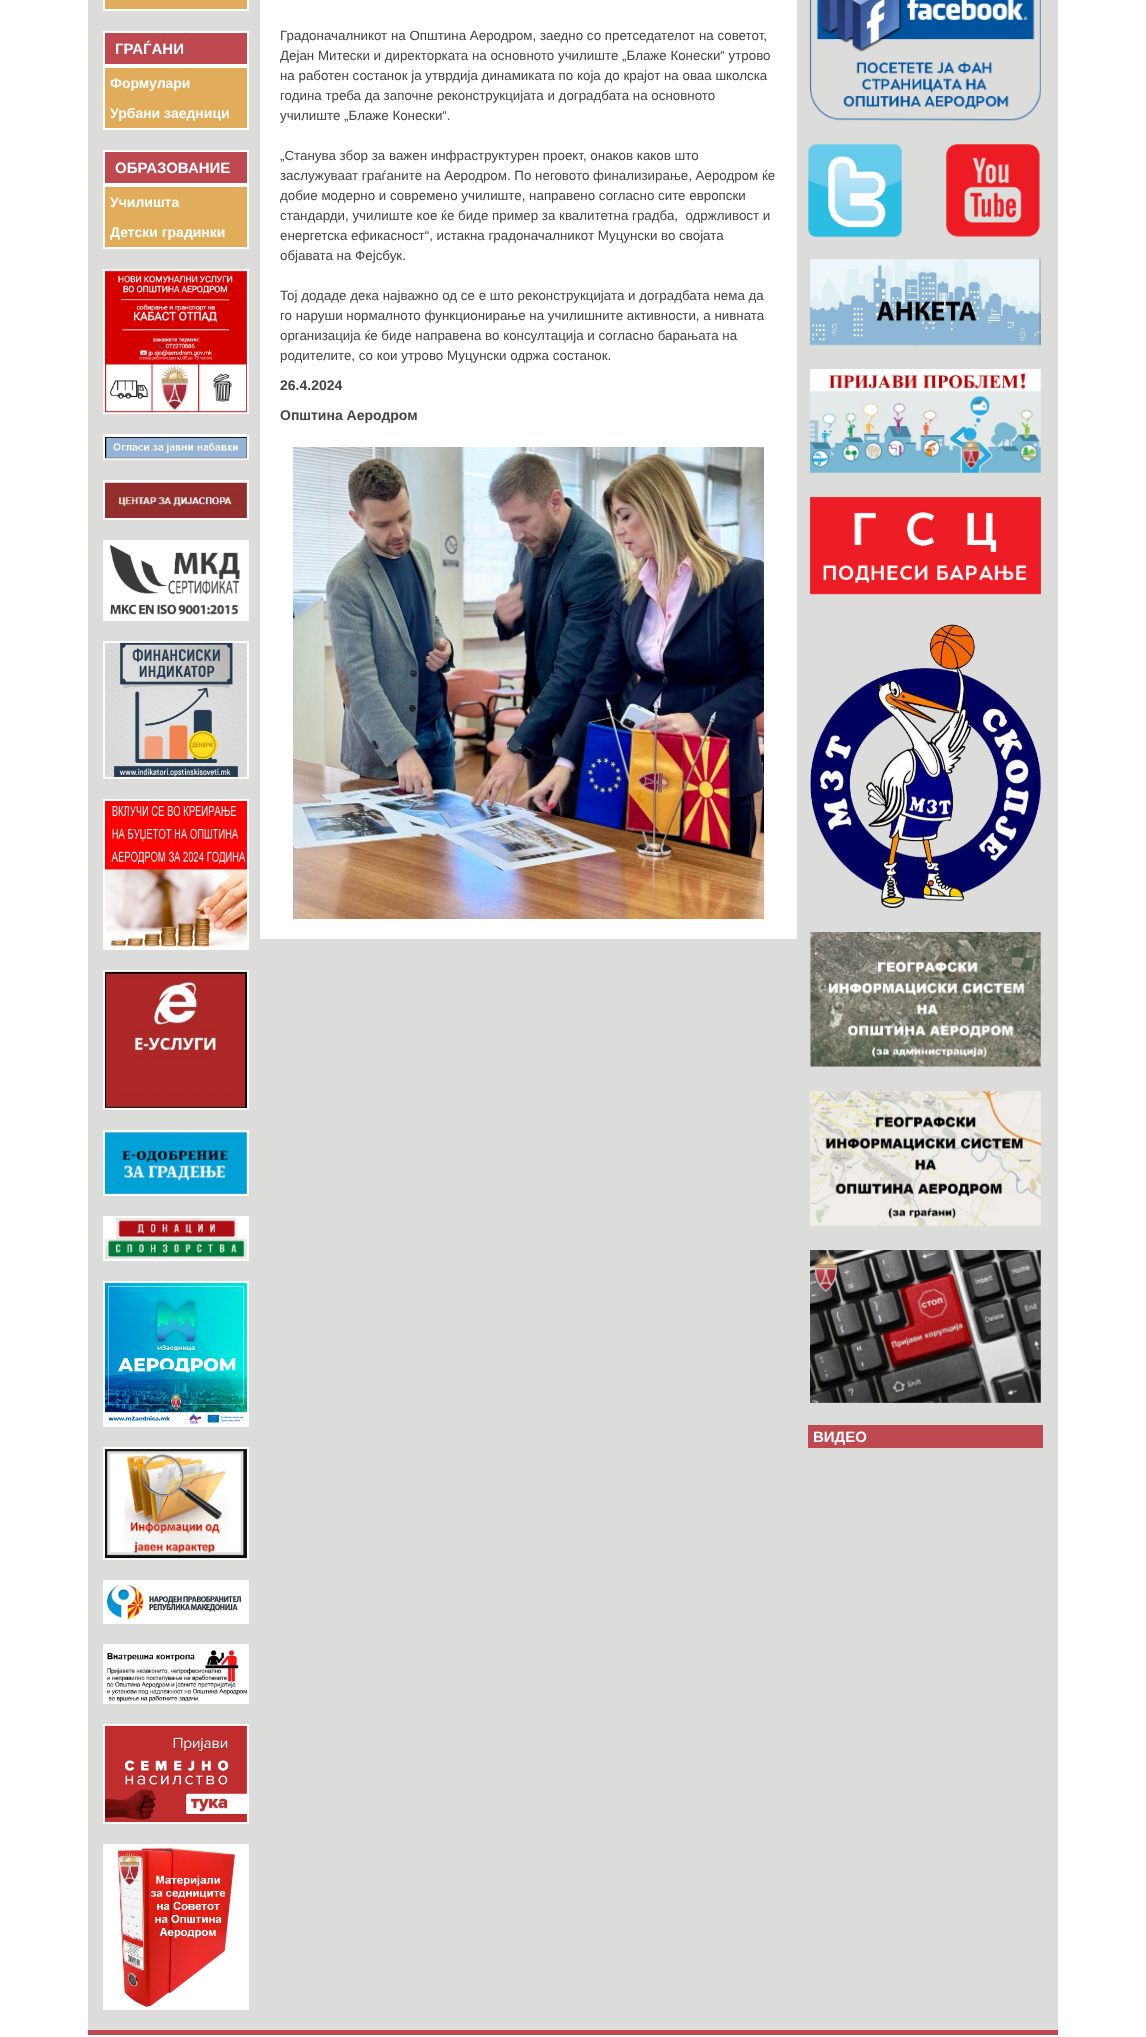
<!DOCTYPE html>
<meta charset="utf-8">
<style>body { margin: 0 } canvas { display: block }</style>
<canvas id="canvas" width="1146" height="2037"></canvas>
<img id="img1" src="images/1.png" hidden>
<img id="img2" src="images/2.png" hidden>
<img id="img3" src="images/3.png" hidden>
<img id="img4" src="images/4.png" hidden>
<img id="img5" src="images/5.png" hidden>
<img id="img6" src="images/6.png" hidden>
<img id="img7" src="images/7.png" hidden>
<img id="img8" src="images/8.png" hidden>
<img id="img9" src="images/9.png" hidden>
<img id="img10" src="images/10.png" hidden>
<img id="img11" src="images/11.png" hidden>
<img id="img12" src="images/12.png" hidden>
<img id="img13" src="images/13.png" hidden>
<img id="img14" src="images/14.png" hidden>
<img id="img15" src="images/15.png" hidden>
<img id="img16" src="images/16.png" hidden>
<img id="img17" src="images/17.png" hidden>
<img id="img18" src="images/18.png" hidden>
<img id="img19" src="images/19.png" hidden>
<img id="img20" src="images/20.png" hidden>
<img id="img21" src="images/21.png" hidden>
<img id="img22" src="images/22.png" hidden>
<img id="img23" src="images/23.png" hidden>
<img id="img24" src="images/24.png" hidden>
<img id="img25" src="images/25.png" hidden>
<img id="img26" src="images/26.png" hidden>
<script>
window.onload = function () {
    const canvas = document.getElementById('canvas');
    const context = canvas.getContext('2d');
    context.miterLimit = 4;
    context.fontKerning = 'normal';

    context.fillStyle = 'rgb(255, 255, 255)';
    context.fillRect(0, 0, 1146, 2037);
    context.fillStyle = 'rgb(220, 220, 218)';
    context.fillRect(88, 0, 970, 2030);
    context.fillStyle = 'rgb(255, 255, 255)';
    context.fillRect(103, 0, 146, 11);
    context.fillStyle = 'rgb(225, 173, 91)';
    context.fillRect(105, 0, 142, 9);
    context.fillStyle = 'rgb(191, 73, 81)';
    context.beginPath();
    context.rect(104, 32, 144, 33);
    context.fill();
    context.strokeStyle = 'rgb(255, 255, 255)';
    context.lineWidth = 2;
    context.stroke();
    context.fillStyle = 'rgb(255, 255, 255)';
    context.fillRect(103, 66, 146, 64);
    context.fillStyle = 'rgb(225, 173, 91)';
    context.fillRect(105, 68, 142, 60);
    context.fillStyle = 'rgb(191, 73, 81)';
    context.beginPath();
    context.rect(104, 151, 144, 33);
    context.fill();
    context.stroke();
    context.fillStyle = 'rgb(255, 255, 255)';
    context.fillRect(103, 185, 146, 64);
    context.fillStyle = 'rgb(225, 173, 91)';
    context.fillRect(105, 187, 142, 60);
    context.fillStyle = 'rgb(255, 255, 255)';
    context.fillRect(103, 269, 146, 145);
    context.drawImage(document.getElementById('img1'), 105, 270, 142, 143);
    context.fillRect(103, 434, 146, 26);
    context.drawImage(document.getElementById('img2'), 105, 437, 142, 22);
    context.fillRect(103, 480, 146, 40);
    context.drawImage(document.getElementById('img3'), 105, 482, 142, 36);
    context.fillRect(103, 540, 146, 81);
    context.drawImage(document.getElementById('img4'), 109, 544, 131, 71);
    context.fillRect(103, 641, 146, 138);
    context.drawImage(document.getElementById('img5'), 105, 642, 142, 135);
    context.fillRect(103, 799, 146, 151);
    context.drawImage(document.getElementById('img6'), 105, 801, 142, 147);
    context.fillRect(103, 970, 146, 140);
    context.drawImage(document.getElementById('img7'), 105, 971, 142, 137);
    context.fillRect(103, 1130, 146, 66);
    context.drawImage(document.getElementById('img8'), 105, 1131, 142, 63);
    context.fillRect(103, 1216, 146, 45);
    context.drawImage(document.getElementById('img9'), 105, 1218, 142, 41);
    context.fillRect(103, 1281, 146, 146);
    context.drawImage(document.getElementById('img10'), 105, 1282, 142, 142);
    context.fillRect(103, 1447, 146, 113);
    context.drawImage(document.getElementById('img11'), 105, 1449, 142, 110);
    context.fillRect(103, 1580, 146, 44);
    context.drawImage(document.getElementById('img12'), 105, 1582, 137, 40);
    context.fillRect(103, 1644, 146, 60);
    context.drawImage(document.getElementById('img13'), 105, 1647, 142, 55);
    context.fillRect(103, 1724, 146, 100);
    context.drawImage(document.getElementById('img14'), 105, 1725, 142, 97);
    context.fillRect(103, 1844, 146, 166);
    context.drawImage(document.getElementById('img15'), 114, 1846, 123, 162);
    context.fillRect(260, 0, 537, 939);
    context.drawImage(document.getElementById('img16'), 293, 447, 471, 472);
    context.drawImage(document.getElementById('img17'), 809, 0, 232, 121);
    context.drawImage(document.getElementById('img18'), 808, 144, 94, 93);
    context.drawImage(document.getElementById('img19'), 946, 144, 94, 93);
    context.drawImage(document.getElementById('img20'), 809, 259, 232, 87);
    context.drawImage(document.getElementById('img21'), 810, 369, 231, 104);
    context.drawImage(document.getElementById('img22'), 809, 496, 232, 99);
    context.drawImage(document.getElementById('img23'), 810, 624, 231, 285);
    context.drawImage(document.getElementById('img24'), 809, 932, 232, 135);
    context.drawImage(document.getElementById('img25'), 810, 1090, 231, 136);
    context.drawImage(document.getElementById('img26'), 810, 1250, 231, 153);
    context.fillStyle = 'rgb(191, 73, 81)';
    context.fillRect(808, 1425, 235, 23);
    context.fillRect(88, 2030, 970, 5);
    context.font = 'bold 15px Liberation Sans';
    context.fillStyle = 'rgb(255, 255, 255)';
    context.fillText('ГРАЃАНИ', 115, 54);
    context.font = 'bold 14px Liberation Sans';
    context.fillText('Формулари', 110, 88);
    context.fillText('Урбани заедници', 110, 118);
    context.font = 'bold 15px Liberation Sans';
    context.fillText('ОБРАЗОВАНИЕ', 115, 173);
    context.font = 'bold 14px Liberation Sans';
    context.fillText('Училишта', 110, 207);
    context.fillText('Детски градинки', 110, 237);
    context.font = '13.35px Liberation Sans';
    context.fillStyle = 'rgb(68, 68, 68)';
    context.fillText('Градоначалникот на Општина Аеродром, заедно со претседателот на советот,', 280, 40);
    context.fillText('Дејан Митески и директорката на основното училиште „Блаже Конески“ утрово', 280, 60);
    context.fillText('на работен состанок ја утврдија динамиката по која до крајот на оваа школска', 280, 80);
    context.fillText('година треба да започне реконструкцијата и доградбата на основното', 280, 100);
    context.fillText('училиште „Блаже Конески“.', 280, 120);
    context.fillText('„Станува збор за важен инфраструктурен проект, онаков каков што', 280, 160);
    context.fillText('заслужуваат граѓаните на Аеродром. По неговото финализирање, Аеродром ќе', 280, 180);
    context.fillText('добие модерно и современо училиште, направено согласно сите европски', 280, 200);
    context.fillText('стандарди, училиште кое ќе биде пример за квалитетна градба,  одржливост и', 280, 220);
    context.fillText('енергетска ефикасност“, истакна градоначалникот Муцунски во својата', 280, 240);
    context.fillText('објавата на Фејсбук.', 280, 260);
    context.fillText('Тој додаде дека најважно од се е што реконструкцијата и доградбата нема да', 280, 300);
    context.fillText('го наруши нормалното функционирање на училишните активности, а нивната', 280, 320);
    context.fillText('организација ќе биде направена во консултација и согласно барањата на', 280, 340);
    context.fillText('родителите, со кои утрово Муцунски одржа состанок.', 280, 360);
    context.font = 'bold 14px Liberation Sans';
    context.fillText('26.4.2024', 280, 390);
    context.fillText('Општина Аеродром', 280, 420);
    context.font = 'bold 15px Liberation Sans';
    context.fillStyle = 'rgb(255, 255, 255)';
    context.fillText('ВИДЕО', 813, 1442);
};
</script>
